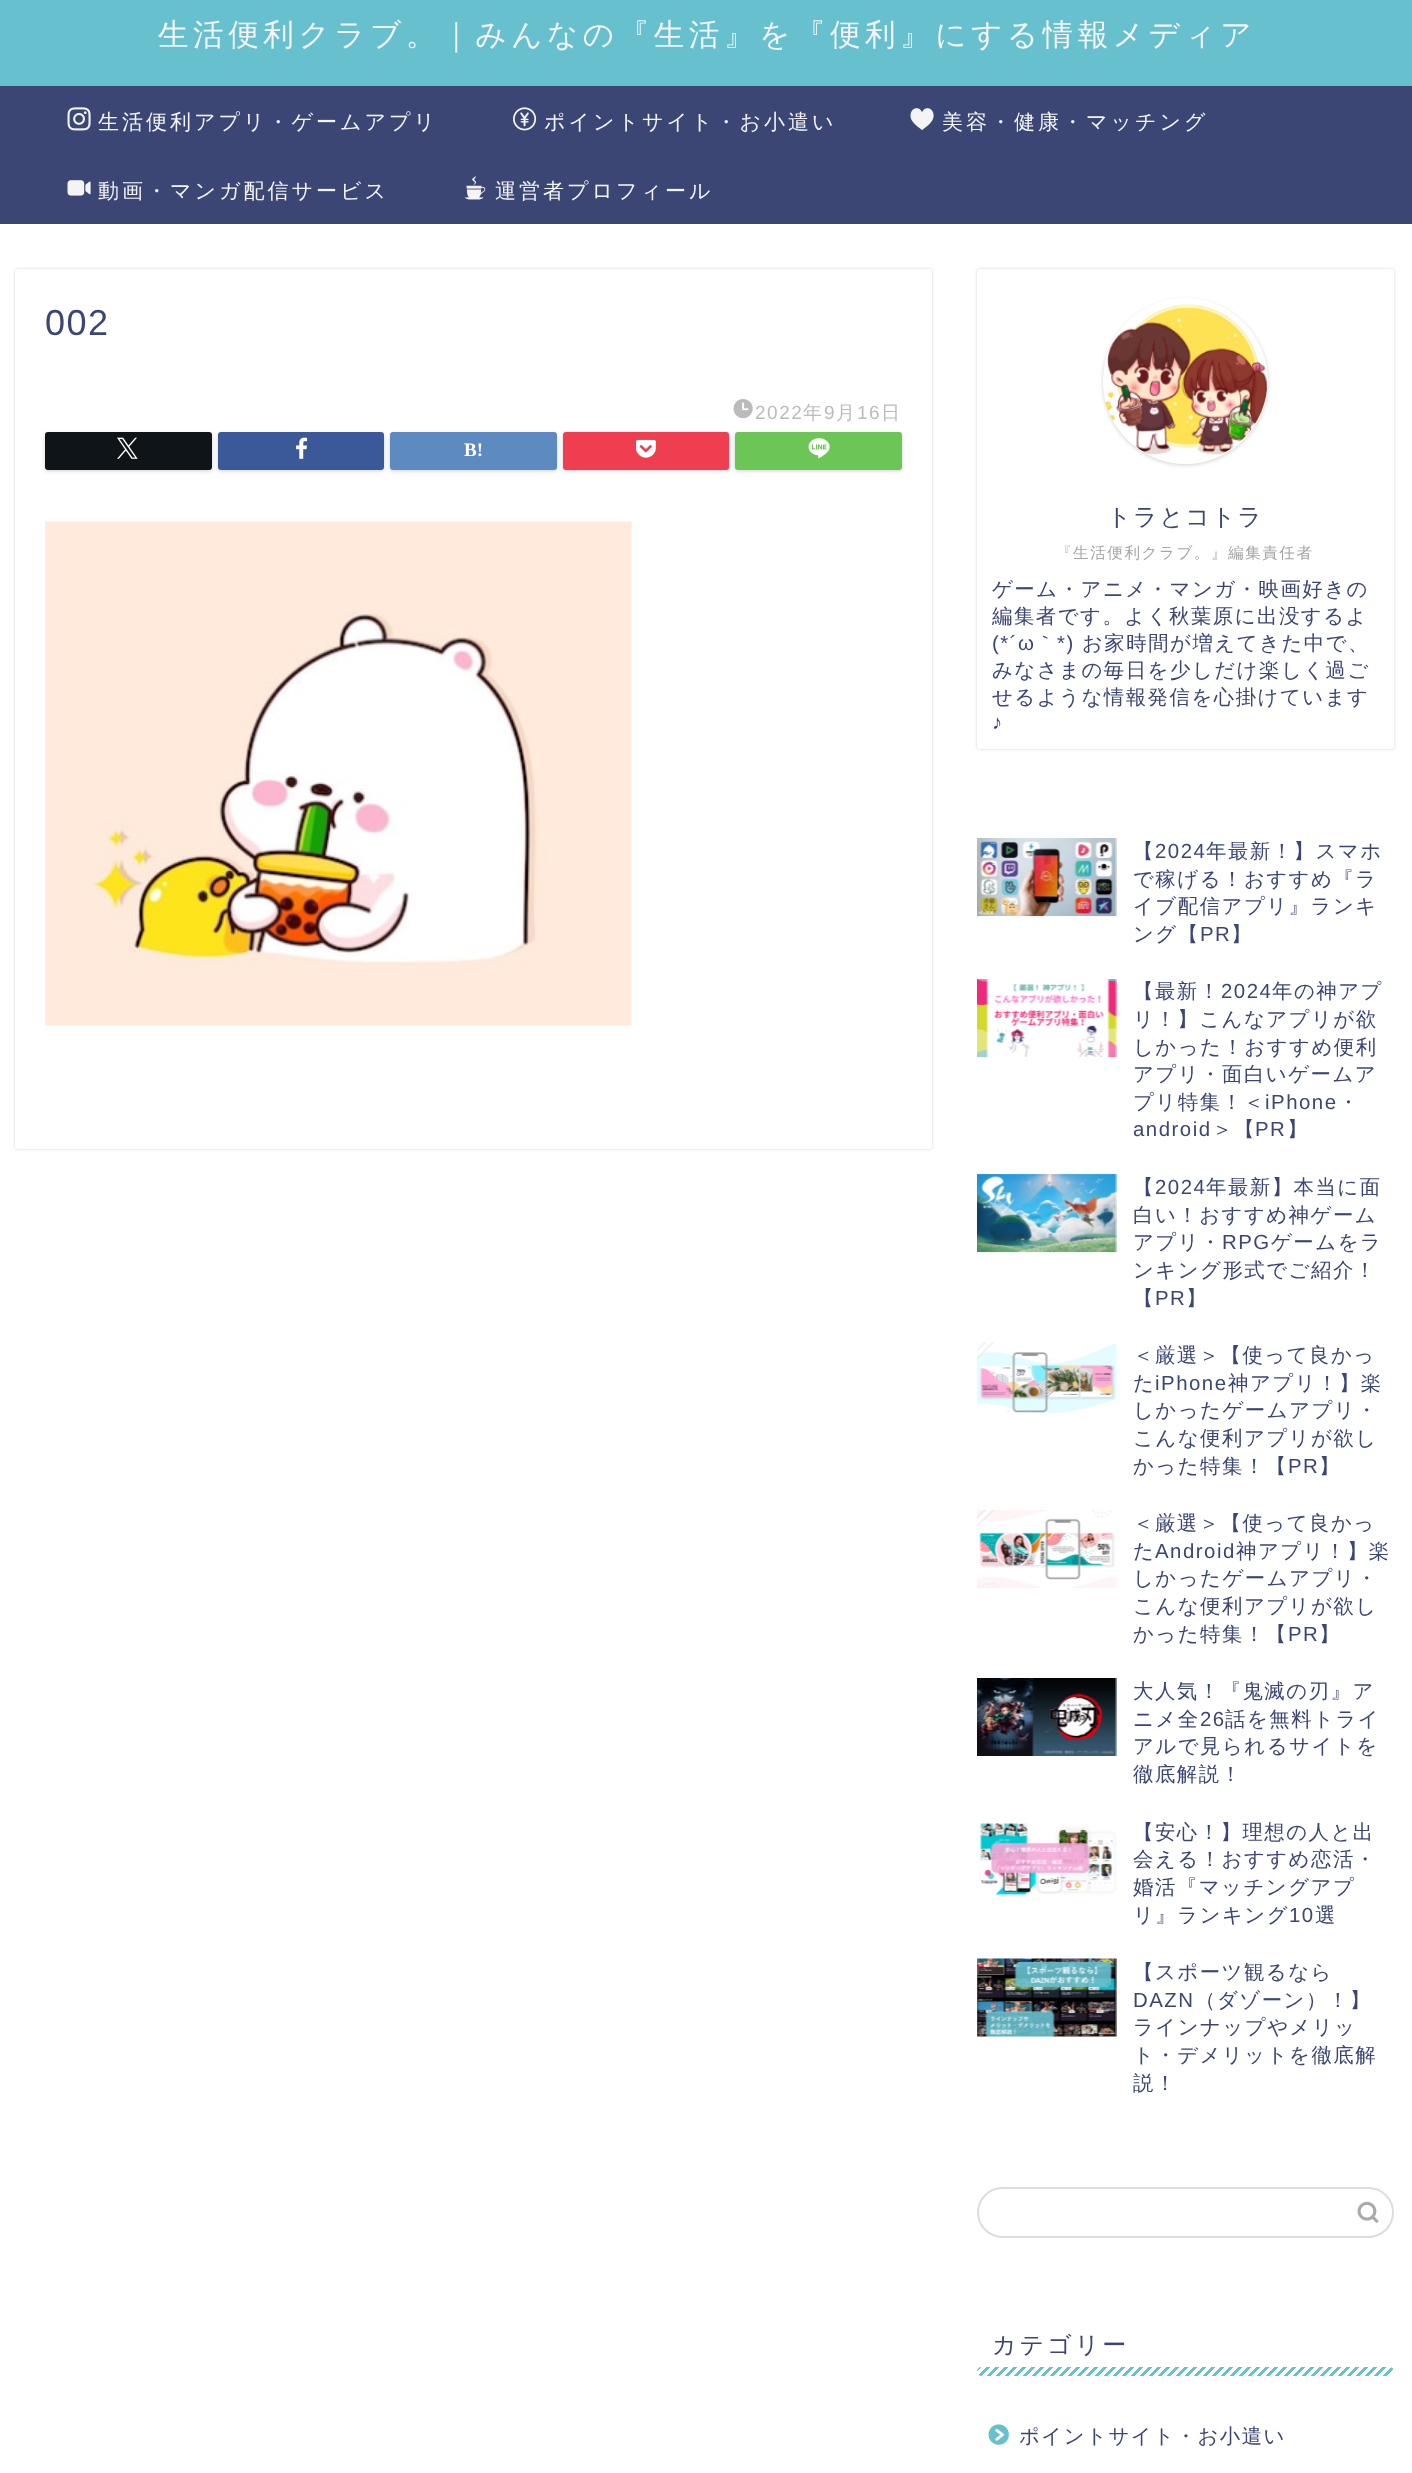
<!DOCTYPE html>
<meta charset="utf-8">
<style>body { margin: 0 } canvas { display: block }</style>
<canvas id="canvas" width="1412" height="2473"></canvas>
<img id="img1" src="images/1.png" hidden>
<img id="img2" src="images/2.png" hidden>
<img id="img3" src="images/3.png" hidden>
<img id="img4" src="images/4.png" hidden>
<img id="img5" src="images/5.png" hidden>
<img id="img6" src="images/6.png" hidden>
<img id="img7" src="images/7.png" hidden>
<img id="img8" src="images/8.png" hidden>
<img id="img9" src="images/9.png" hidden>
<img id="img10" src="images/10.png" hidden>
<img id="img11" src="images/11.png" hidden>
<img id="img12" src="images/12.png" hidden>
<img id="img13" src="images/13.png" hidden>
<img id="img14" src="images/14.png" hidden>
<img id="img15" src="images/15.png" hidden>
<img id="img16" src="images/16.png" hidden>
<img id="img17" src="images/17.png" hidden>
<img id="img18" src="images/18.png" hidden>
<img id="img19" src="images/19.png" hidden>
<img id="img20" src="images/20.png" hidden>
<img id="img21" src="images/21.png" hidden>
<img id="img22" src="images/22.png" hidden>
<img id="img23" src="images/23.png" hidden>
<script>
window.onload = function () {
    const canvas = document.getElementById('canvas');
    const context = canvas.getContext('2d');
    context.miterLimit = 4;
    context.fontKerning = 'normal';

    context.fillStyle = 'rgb(255, 255, 255)';
    context.fillRect(0, 0, 1412, 2473);
    context.fillStyle = 'rgb(103, 192, 206)';
    context.fillRect(0, 0, 1412, 86);
    context.fillStyle = 'rgb(59, 70, 117)';
    context.fillRect(0, 86, 1412, 138);
    context.drawImage(document.getElementById('img1'), 67, 107, 24, 24);
    context.drawImage(document.getElementById('img2'), 513, 107, 24, 24);
    context.drawImage(document.getElementById('img3'), 910, 108, 24, 23);
    context.drawImage(document.getElementById('img4'), 67, 180, 24, 16);
    context.drawImage(document.getElementById('img5'), 464, 176, 22, 24);
    context.fillStyle = 'rgba(0, 0, 0, 0.18)';
    context.filter = 'blur(1.5px)';
    context.beginPath();
    context.roundRect(15, 269, 917, 880, 3);
    context.fill();
    context.filter = 'none';
    context.fillStyle = 'rgb(255, 255, 255)';
    context.beginPath();
    context.roundRect(15, 269, 917, 880, 3);
    context.fill();
    context.drawImage(document.getElementById('img6'), 733, 399, 20, 20);
    context.fillStyle = 'rgba(0, 0, 0, 0.18)';
    context.filter = 'blur(2px)';
    context.beginPath();
    context.roundRect(45, 434, 167, 37, 3);
    context.fill();
    context.filter = 'none';
    context.fillStyle = 'rgb(15, 20, 25)';
    context.beginPath();
    context.roundRect(46.5, 433.5, 164, 35, 1.5);
    context.fill();
    context.strokeStyle = 'rgb(15, 20, 25)';
    context.lineWidth = 3;
    context.stroke();
    context.drawImage(document.getElementById('img7'), 117, 437, 21, 22);
    context.fillStyle = 'rgba(0, 0, 0, 0.18)';
    context.filter = 'blur(2px)';
    context.beginPath();
    context.roundRect(218, 434, 166, 37, 3);
    context.fill();
    context.filter = 'none';
    context.fillStyle = 'rgb(59, 89, 152)';
    context.beginPath();
    context.roundRect(219.5, 433.5, 163, 35, 1.5);
    context.fill();
    context.strokeStyle = 'rgb(59, 89, 152)';
    context.stroke();
    context.drawImage(document.getElementById('img8'), 296, 437, 12, 22);
    context.fillStyle = 'rgba(0, 0, 0, 0.18)';
    context.filter = 'blur(2px)';
    context.beginPath();
    context.roundRect(390, 434, 167, 37, 3);
    context.fill();
    context.filter = 'none';
    context.fillStyle = 'rgb(93, 138, 193)';
    context.beginPath();
    context.roundRect(391.5, 433.5, 164, 35, 1.5);
    context.fill();
    context.strokeStyle = 'rgb(93, 138, 193)';
    context.stroke();
    context.fillStyle = 'rgba(0, 0, 0, 0.18)';
    context.filter = 'blur(2px)';
    context.beginPath();
    context.roundRect(563, 434, 166, 37, 3);
    context.fill();
    context.filter = 'none';
    context.fillStyle = 'rgb(240, 62, 81)';
    context.beginPath();
    context.roundRect(564.5, 433.5, 163, 35, 1.5);
    context.fill();
    context.strokeStyle = 'rgb(240, 62, 81)';
    context.stroke();
    context.drawImage(document.getElementById('img9'), 636, 439, 20, 19);
    context.fillStyle = 'rgba(0, 0, 0, 0.18)';
    context.filter = 'blur(2px)';
    context.beginPath();
    context.roundRect(735, 434, 167, 37, 3);
    context.fill();
    context.filter = 'none';
    context.fillStyle = 'rgb(108, 198, 85)';
    context.beginPath();
    context.roundRect(736.5, 433.5, 164, 35, 1.5);
    context.fill();
    context.strokeStyle = 'rgb(108, 198, 85)';
    context.stroke();
    context.drawImage(document.getElementById('img10'), 808, 438, 22, 21);
    context.drawImage(document.getElementById('img11'), 45, 521, 587, 505);
    context.fillStyle = 'rgba(0, 0, 0, 0.18)';
    context.filter = 'blur(1.5px)';
    context.beginPath();
    context.roundRect(977, 269, 417, 480, 3);
    context.fill();
    context.filter = 'none';
    context.fillStyle = 'rgb(255, 255, 255)';
    context.beginPath();
    context.roundRect(977, 269, 417, 480, 3);
    context.fill();
    context.fillStyle = 'rgba(0, 0, 0, 0.18)';
    context.filter = 'blur(2px)';
    context.beginPath();
    context.roundRect(1103, 300, 165, 165, 82.5);
    context.fill();
    context.filter = 'none';
    context.fillStyle = 'rgb(255, 255, 255)';
    context.beginPath();
    context.arc(1185.5, 381.5, 82.5, 0, 2 * Math.PI);
    context.fill();
    context.drawImage(document.getElementById('img12'), 1105, 298, 163, 158);
    context.drawImage(document.getElementById('img13'), 977, 838, 140, 79);
    context.drawImage(document.getElementById('img14'), 977, 979, 140, 79);
    context.drawImage(document.getElementById('img15'), 977, 1174, 140, 79);
    context.drawImage(document.getElementById('img16'), 977, 1342, 140, 71);
    context.drawImage(document.getElementById('img17'), 977, 1510, 140, 78);
    context.drawImage(document.getElementById('img18'), 977, 1678, 140, 78);
    context.drawImage(document.getElementById('img19'), 980, 1823, 137, 72);
    context.drawImage(document.getElementById('img20'), 977, 1958, 140, 79);
    context.beginPath();
    context.roundRect(978, 2188, 415, 49, 24.5);
    context.strokeStyle = 'rgb(221, 221, 221)';
    context.lineWidth = 2;
    context.stroke();
    context.drawImage(document.getElementById('img21'), 1357, 2201, 22, 22);
    context.drawImage(document.getElementById('img22'), 977, 2367, 417, 9);
    context.drawImage(document.getElementById('img23'), 988, 2424, 21, 21);
    context.letterSpacing = '4.5px';
    context.font = '500 30.6px WenQuanYi Zen Hei';
    context.fillStyle = 'rgb(244, 244, 244)';
    context.fillText('生活便利クラブ。｜みんなの『生活』を『便利』にする情報メディア', 158, 45);
    context.letterSpacing = '3px';
    context.font = '500 21px WenQuanYi Zen Hei';
    context.fillText('生活便利アプリ・ゲームアプリ', 98, 129);
    context.fillText('ポイントサイト・お小遣い', 544, 129);
    context.fillText('美容・健康・マッチング', 942, 129);
    context.fillText('動画・マンガ配信サービス', 98, 198);
    context.fillText('運営者プロフィール', 495, 198);
    context.letterSpacing = '1.5px';
    context.font = '36px Liberation Sans';
    context.fillStyle = 'rgb(59, 70, 117)';
    context.fillText('002', 45, 335);
    context.font = '19px Liberation Sans';
    context.fillStyle = 'rgb(187, 187, 187)';
    context.fillText('2022', 755, 419);
    context.font = '500 19px WenQuanYi Zen Hei';
    context.fillText('年', 803, 419);
    context.font = '19px Liberation Sans';
    context.fillText('9', 824, 419);
    context.font = '500 19px WenQuanYi Zen Hei';
    context.fillText('月', 836, 419);
    context.font = '19px Liberation Sans';
    context.fillText('16', 857, 419);
    context.font = '500 19px WenQuanYi Zen Hei';
    context.fillText('日', 881, 419);
    context.letterSpacing = '0px';
    context.font = 'bold 19px Liberation Serif';
    context.fillStyle = 'rgb(255, 255, 255)';
    context.fillText('B!', 464, 456);
    context.letterSpacing = '1.5px';
    context.font = '500 24px WenQuanYi Zen Hei';
    context.fillStyle = 'rgb(59, 70, 117)';
    context.fillText('トラとコトラ', 1107, 525);
    context.font = '500 15.6px WenQuanYi Zen Hei';
    context.fillStyle = 'rgb(166, 166, 166)';
    context.fillText('『生活便利クラブ。』編集責任者', 1056, 558);
    context.font = '500 20.4px WenQuanYi Zen Hei';
    context.fillStyle = 'rgb(59, 70, 117)';
    context.fillText('ゲーム・アニメ・マンガ・映画好きの', 992, 596);
    context.fillText('編集者です。よく秋葉原に出没するよ', 992, 623);
    context.font = '20.4px Liberation Sans';
    context.fillText('(*´ω', 992, 650);
    context.font = '500 20.4px WenQuanYi Zen Hei';
    context.fillText('｀', 1035, 650);
    context.font = '20.4px Liberation Sans';
    context.fillText('*)', 1057, 650);
    context.font = '500 20.4px WenQuanYi Zen Hei';
    context.fillText('お家時間が増えてきた中で、', 1082, 650);
    context.fillText('みなさまの毎日を少しだけ楽しく過ご', 992, 677);
    context.fillText('せるような情報発信を心掛けています', 992, 704);
    context.font = '20.4px Liberation Sans';
    context.fillText('♪', 992, 729);
    context.font = '500 20.4px WenQuanYi Zen Hei';
    context.fillText('【', 1133, 858);
    context.font = '20.4px Liberation Sans';
    context.fillText('2024', 1155, 858);
    context.font = '500 20.4px WenQuanYi Zen Hei';
    context.fillText('年最新！】スマホ', 1206, 858);
    context.fillText('で稼げる！おすすめ『ラ', 1133, 886);
    context.fillText('イブ配信アプリ』ランキ', 1133, 913);
    context.fillText('ング【', 1133, 941);
    context.font = '20.4px Liberation Sans';
    context.fillText('PR', 1200, 941);
    context.font = '500 20.4px WenQuanYi Zen Hei';
    context.fillText('】', 1231, 941);
    context.fillText('【最新！', 1133, 998);
    context.font = '20.4px Liberation Sans';
    context.fillText('2024', 1221, 998);
    context.font = '500 20.4px WenQuanYi Zen Hei';
    context.fillText('年の神アプ', 1272, 998);
    context.fillText('リ！】こんなアプリが欲', 1133, 1026);
    context.fillText('しかった！おすすめ便利', 1133, 1054);
    context.fillText('アプリ・面白いゲームア', 1133, 1081);
    context.fillText('プリ特集！＜', 1133, 1109);
    context.font = '20.4px Liberation Sans';
    context.fillText('iPhone', 1265, 1109);
    context.font = '500 20.4px WenQuanYi Zen Hei';
    context.fillText('・', 1338, 1109);
    context.font = '20.4px Liberation Sans';
    context.fillText('android', 1133, 1136);
    context.font = '500 20.4px WenQuanYi Zen Hei';
    context.fillText('＞【', 1212, 1136);
    context.font = '20.4px Liberation Sans';
    context.fillText('PR', 1255, 1136);
    context.font = '500 20.4px WenQuanYi Zen Hei';
    context.fillText('】', 1287, 1136);
    context.fillText('【', 1133, 1194);
    context.font = '20.4px Liberation Sans';
    context.fillText('2024', 1155, 1194);
    context.font = '500 20.4px WenQuanYi Zen Hei';
    context.fillText('年最新】本当に面', 1206, 1194);
    context.fillText('白い！おすすめ神ゲーム', 1133, 1222);
    context.fillText('アプリ・', 1133, 1249);
    context.font = '20.4px Liberation Sans';
    context.fillText('RPG', 1222, 1249);
    context.font = '500 20.4px WenQuanYi Zen Hei';
    context.fillText('ゲームをラ', 1271, 1249);
    context.fillText('ンキング形式でご紹介！', 1133, 1277);
    context.fillText('【', 1133, 1305);
    context.font = '20.4px Liberation Sans';
    context.fillText('PR', 1155, 1305);
    context.font = '500 20.4px WenQuanYi Zen Hei';
    context.fillText('】', 1186, 1305);
    context.fillText('＜厳選＞【使って良かっ', 1133, 1362);
    context.fillText('た', 1133, 1390);
    context.font = '20.4px Liberation Sans';
    context.fillText('iPhone', 1155, 1390);
    context.font = '500 20.4px WenQuanYi Zen Hei';
    context.fillText('神アプリ！】楽', 1228, 1390);
    context.fillText('しかったゲームアプリ・', 1133, 1417);
    context.fillText('こんな便利アプリが欲し', 1133, 1445);
    context.fillText('かった特集！【', 1133, 1473);
    context.font = '20.4px Liberation Sans';
    context.fillText('PR', 1288, 1473);
    context.font = '500 20.4px WenQuanYi Zen Hei';
    context.fillText('】', 1319, 1473);
    context.fillText('＜厳選＞【使って良かっ', 1133, 1530);
    context.fillText('た', 1133, 1558);
    context.font = '20.4px Liberation Sans';
    context.fillText('Android', 1155, 1558);
    context.font = '500 20.4px WenQuanYi Zen Hei';
    context.fillText('神アプリ！】楽', 1236, 1558);
    context.fillText('しかったゲームアプリ・', 1133, 1585);
    context.fillText('こんな便利アプリが欲し', 1133, 1613);
    context.fillText('かった特集！【', 1133, 1641);
    context.font = '20.4px Liberation Sans';
    context.fillText('PR', 1288, 1641);
    context.font = '500 20.4px WenQuanYi Zen Hei';
    context.fillText('】', 1319, 1641);
    context.fillText('大人気！『鬼滅の刃』ア', 1133, 1698);
    context.fillText('ニメ全', 1133, 1726);
    context.font = '20.4px Liberation Sans';
    context.fillText('26', 1200, 1726);
    context.font = '500 20.4px WenQuanYi Zen Hei';
    context.fillText('話を無料トライ', 1225, 1726);
    context.fillText('アルで見られるサイトを', 1133, 1753);
    context.fillText('徹底解説！', 1133, 1781);
    context.fillText('【安心！】理想の人と出', 1133, 1839);
    context.fillText('会える！おすすめ恋活・', 1133, 1866);
    context.fillText('婚活『マッチングアプ', 1133, 1894);
    context.fillText('リ』ランキング', 1133, 1922);
    context.font = '20.4px Liberation Sans';
    context.fillText('10', 1289, 1922);
    context.font = '500 20.4px WenQuanYi Zen Hei';
    context.fillText('選', 1315, 1922);
    context.fillText('【スポーツ観るなら', 1133, 1979);
    context.font = '20.4px Liberation Sans';
    context.fillText('DAZN', 1133, 2007);
    context.font = '500 20.4px WenQuanYi Zen Hei';
    context.fillText('（ダゾーン）！】', 1195, 2007);
    context.fillText('ラインナップやメリッ', 1133, 2034);
    context.fillText('ト・デメリットを徹底解', 1133, 2062);
    context.fillText('説！', 1133, 2090);
    context.letterSpacing = '3px';
    context.font = '500 24px WenQuanYi Zen Hei';
    context.fillText('カテゴリー', 992, 2353);
    context.letterSpacing = '1.5px';
    context.font = '500 20.4px WenQuanYi Zen Hei';
    context.fillText('ポイントサイト・お小遣い', 1019, 2443);
};
</script>
